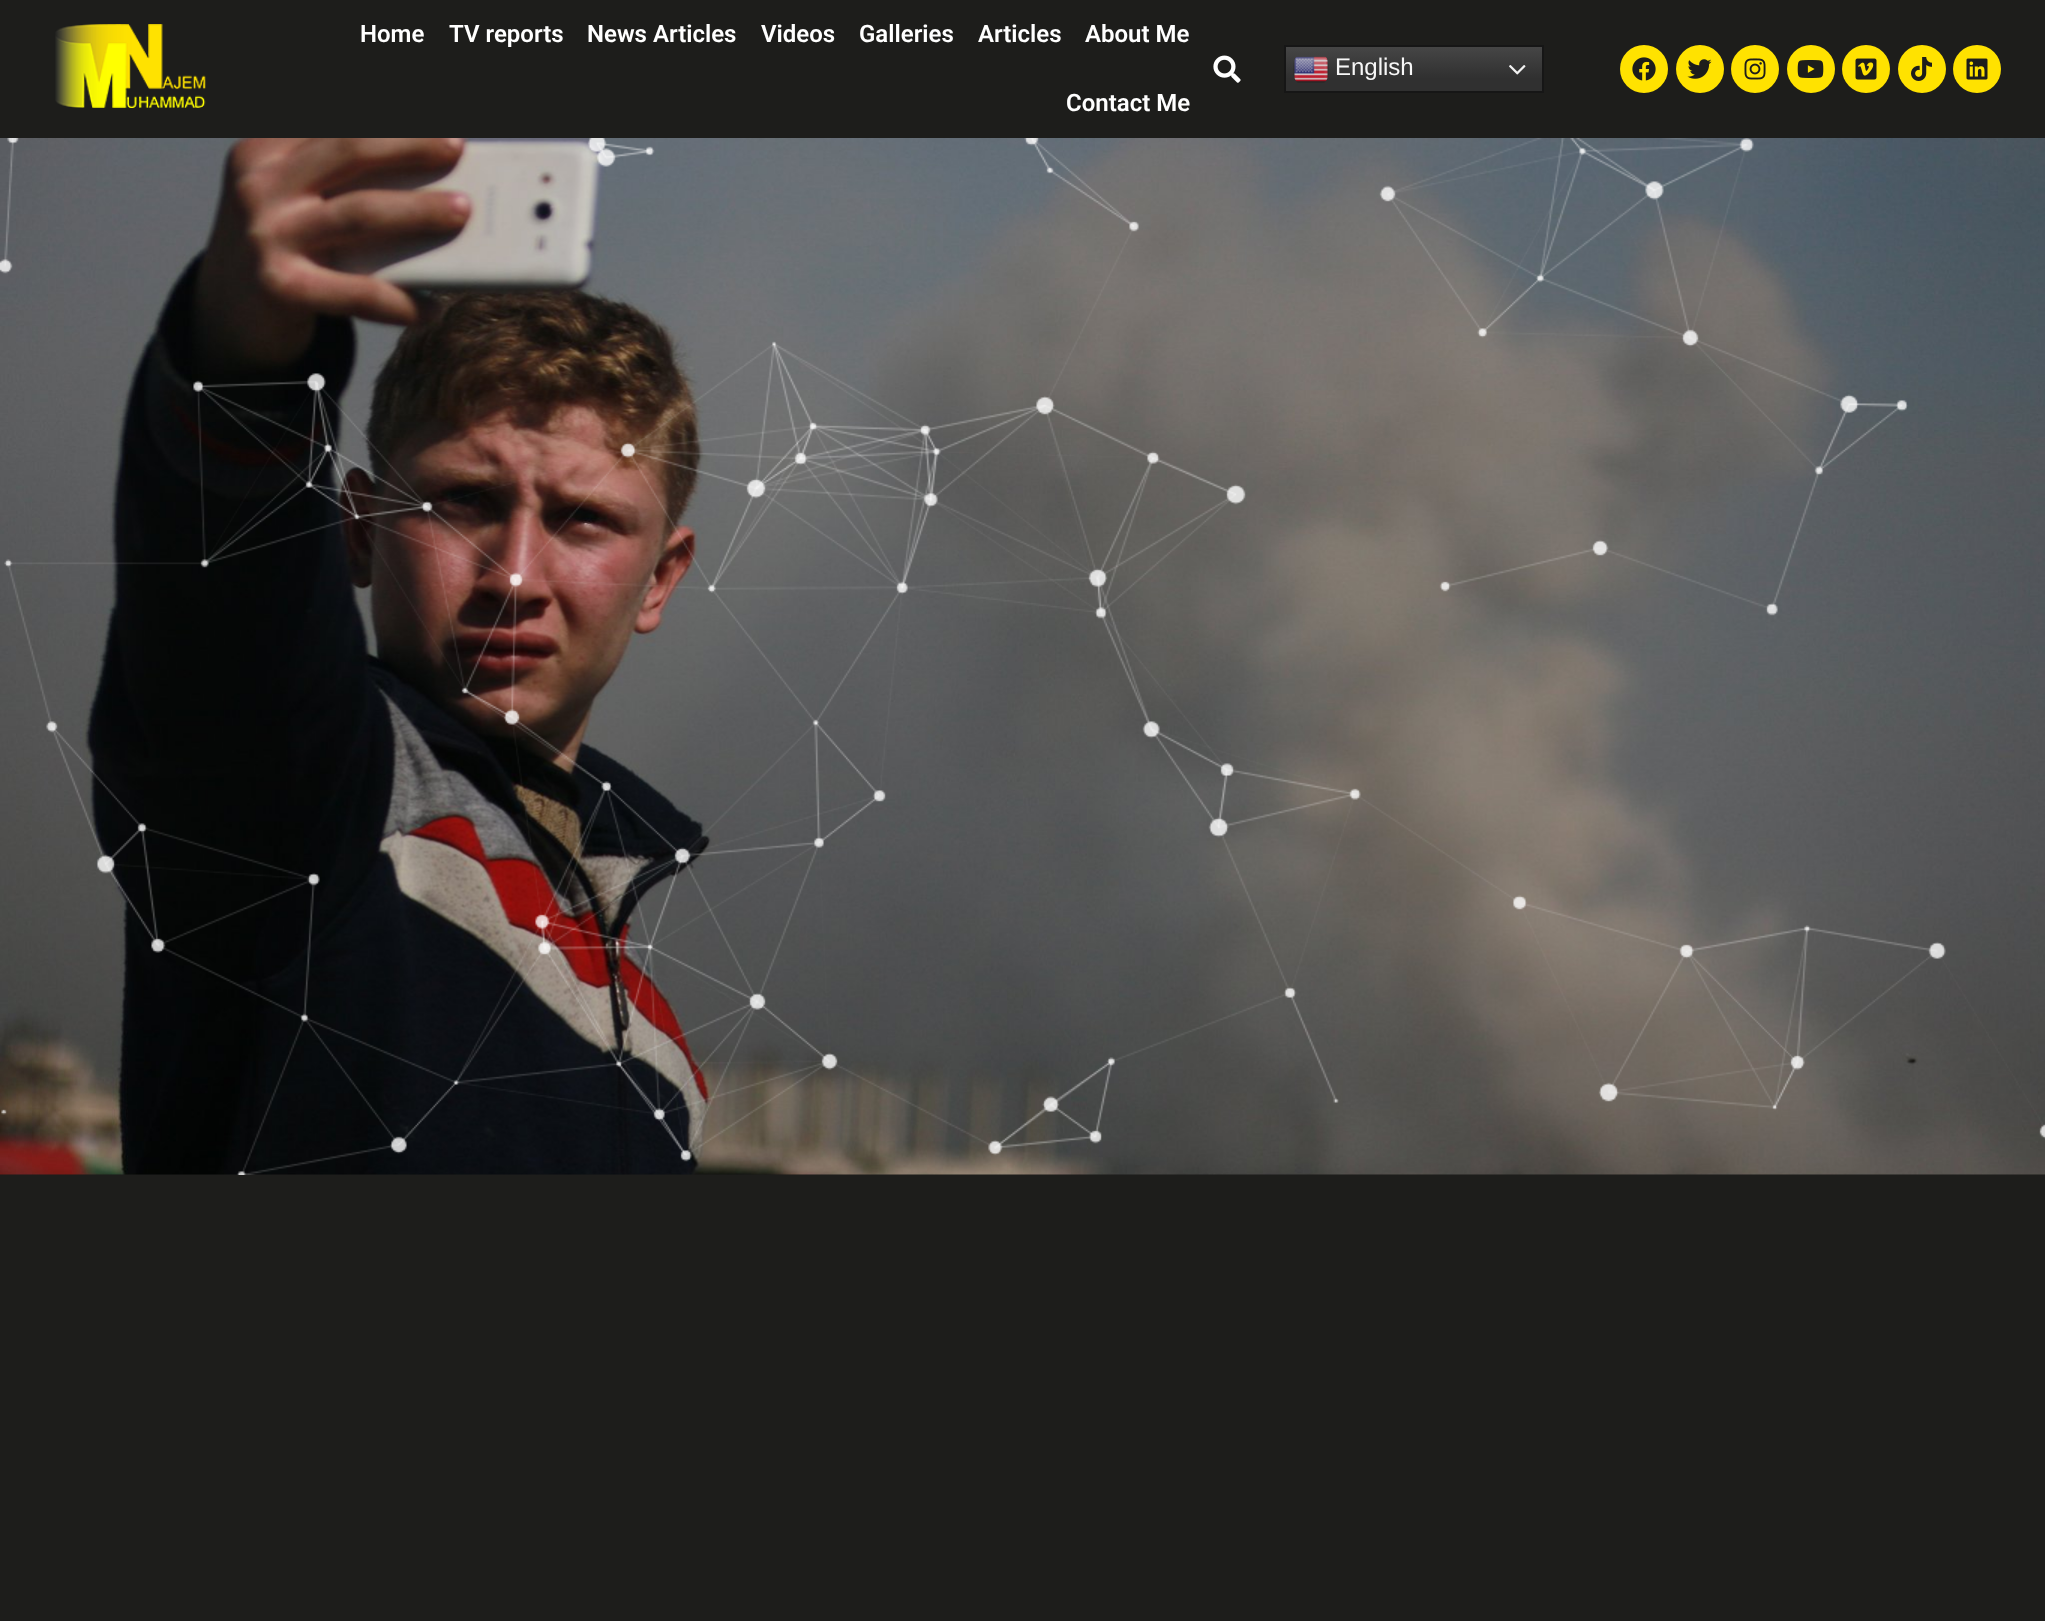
<!DOCTYPE html>
<meta charset="utf-8">
<style>body { margin: 0 } canvas { display: block }</style>
<canvas id="canvas" width="2045" height="1621"></canvas>
<img id="img1" src="images/1.png" hidden>
<img id="img2" src="images/2.png" hidden>
<img id="img3" src="images/3.png" hidden>
<img id="img4" src="images/4.png" hidden>
<img id="img5" src="images/5.png" hidden>
<img id="img6" src="images/6.png" hidden>
<img id="img7" src="images/7.png" hidden>
<img id="img8" src="images/8.png" hidden>
<img id="img9" src="images/9.png" hidden>
<img id="img10" src="images/10.png" hidden>
<img id="img11" src="images/11.png" hidden>
<img id="img12" src="images/12.png" hidden>
<img id="img13" src="images/13.png" hidden>
<script>
window.onload = function () {
    const canvas = document.getElementById('canvas');
    const context = canvas.getContext('2d');
    context.miterLimit = 4;
    context.fontKerning = 'normal';
    let gradient;

    context.fillStyle = 'rgb(29, 29, 27)';
    context.fillRect(0, 0, 2045, 1621);
    context.drawImage(document.getElementById('img1'), 55, 24, 151, 84);
    context.drawImage(document.getElementById('img2'), 1213, 55, 28, 28);
    gradient = context.createLinearGradient(1414, 45, 1414, 93);
    gradient.addColorStop(0, 'rgb(71, 71, 71)');
    gradient.addColorStop(0.7, 'rgb(48, 48, 48)');
    context.fillStyle = gradient;
    context.fillRect(1286, 47, 256, 44);
    context.strokeStyle = 'rgb(22, 22, 22)';
    context.lineWidth = 2;
    context.strokeRect(1285, 46, 258, 46);
    context.drawImage(document.getElementById('img3'), 1293, 56, 36, 27);
    context.drawImage(document.getElementById('img4'), 1509, 65, 17, 10);
    context.fillStyle = 'rgb(255, 226, 0)';
    context.beginPath();
    context.arc(1644, 69, 24, 0, 2 * Math.PI);
    context.fill();
    context.drawImage(document.getElementById('img5'), 1632, 57, 24, 24);
    context.beginPath();
    context.arc(1700, 69, 24, 0, 2 * Math.PI);
    context.fill();
    context.drawImage(document.getElementById('img6'), 1687, 59, 25, 20);
    context.beginPath();
    context.arc(1755, 69, 24, 0, 2 * Math.PI);
    context.fill();
    context.drawImage(document.getElementById('img7'), 1744, 58, 22, 22);
    context.beginPath();
    context.arc(1811, 69, 24, 0, 2 * Math.PI);
    context.fill();
    context.drawImage(document.getElementById('img8'), 1797, 60, 27, 18);
    context.beginPath();
    context.arc(1866, 69, 24, 0, 2 * Math.PI);
    context.fill();
    context.drawImage(document.getElementById('img9'), 1855, 58, 22, 22);
    context.beginPath();
    context.arc(1922, 69, 24, 0, 2 * Math.PI);
    context.fill();
    context.drawImage(document.getElementById('img10'), 1911, 57, 21, 24);
    context.beginPath();
    context.arc(1977, 69, 24, 0, 2 * Math.PI);
    context.fill();
    context.drawImage(document.getElementById('img11'), 1966, 58, 22, 22);
    context.drawImage(document.getElementById('img12'), 0, 138, 2045, 1037);
    context.drawImage(document.getElementById('img13'), 0, 138, 2045, 1037);
    context.font = '600 24px Roboto';
    context.fillStyle = 'rgb(255, 255, 255)';
    context.fillText('Home', 360, 42);
    context.fillText('TV reports', 449, 42);
    context.fillText('News Articles', 587, 42);
    context.fillText('Videos', 761, 42);
    context.fillText('Galleries', 859, 42);
    context.fillText('Articles', 978, 42);
    context.fillText('About Me', 1085, 42);
    context.fillText('Contact Me', 1066, 111);
    context.font = '24px Liberation Sans';
    context.fillStyle = 'rgb(247, 247, 247)';
    context.fillText('English', 1335, 75);
};
</script>
